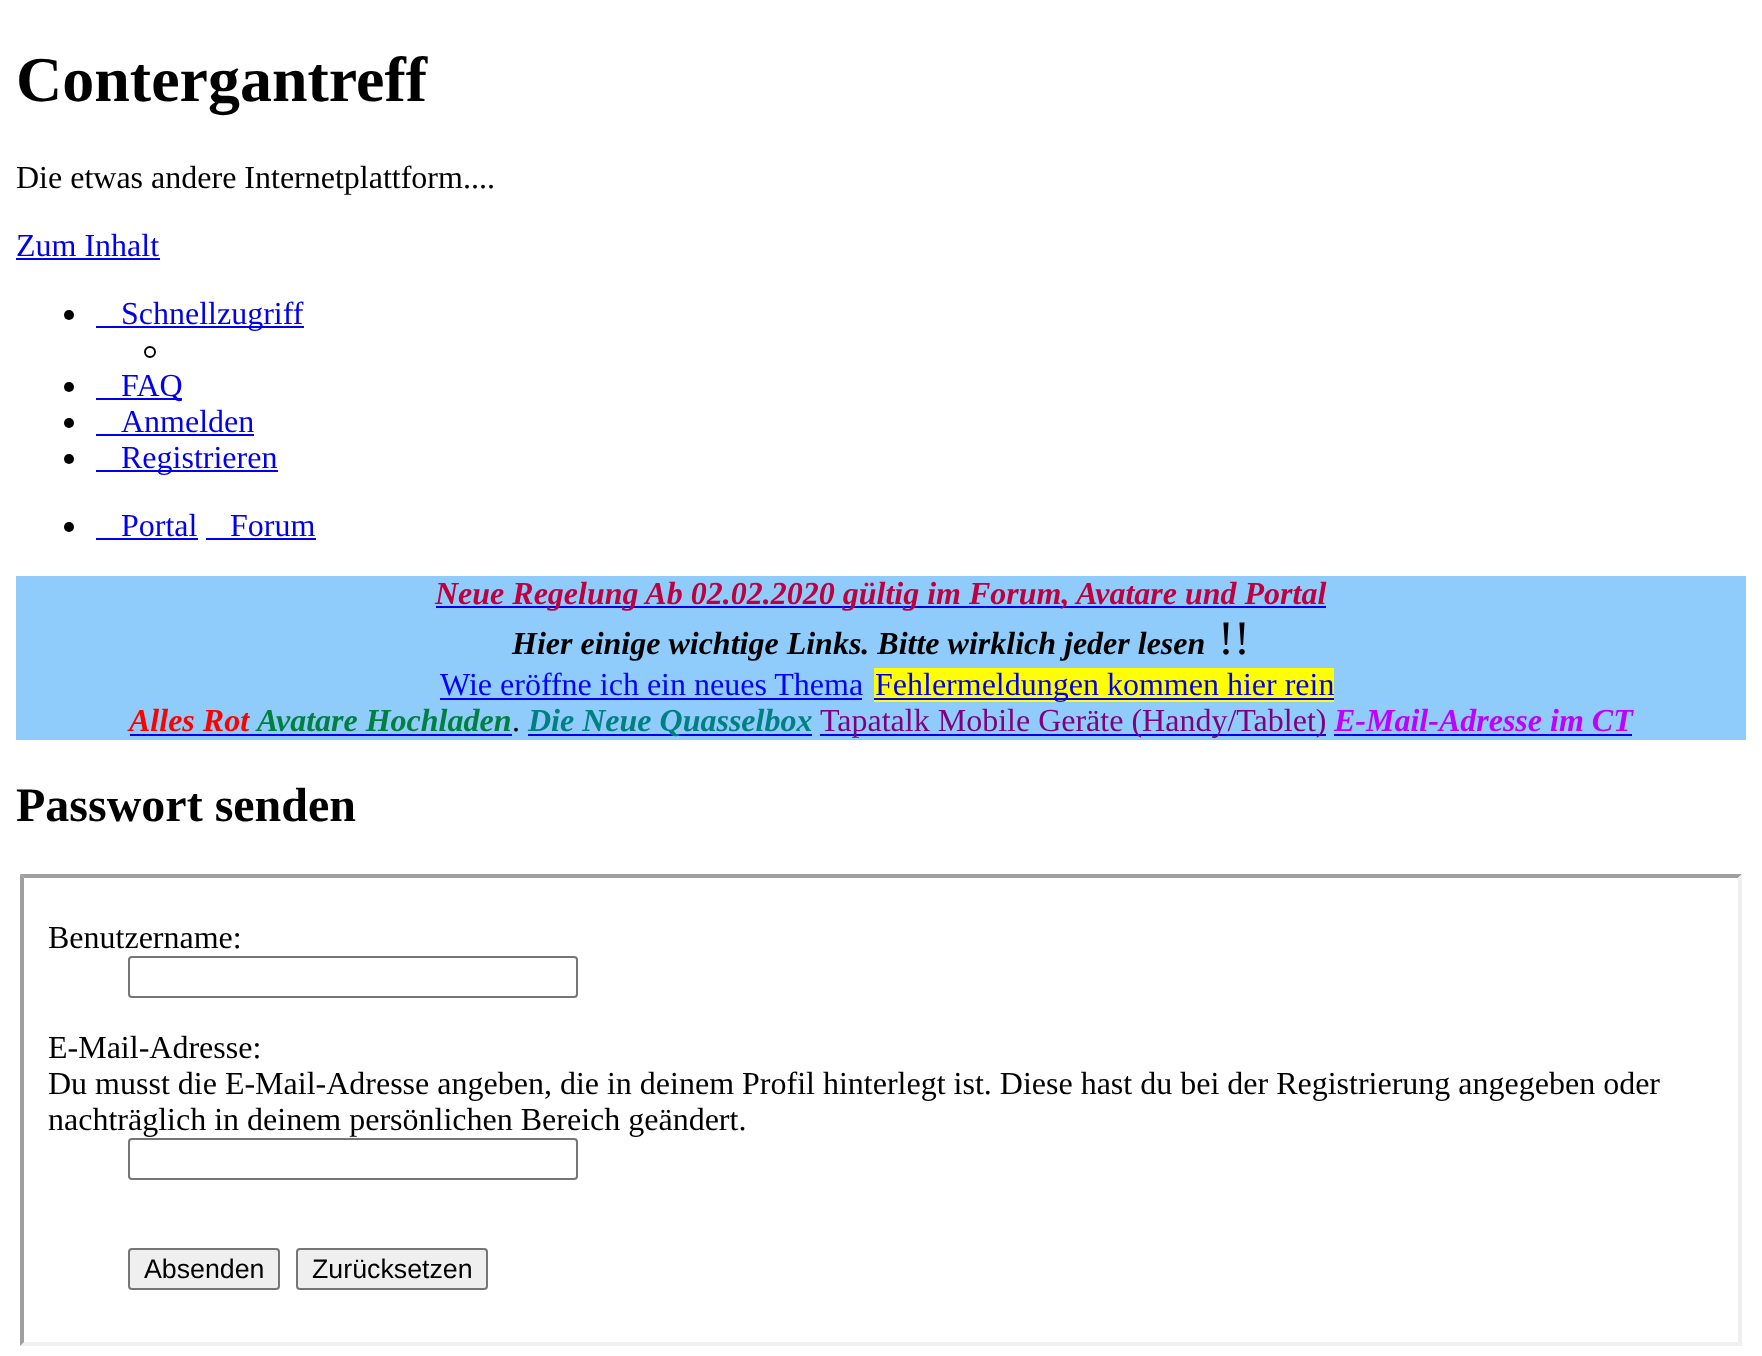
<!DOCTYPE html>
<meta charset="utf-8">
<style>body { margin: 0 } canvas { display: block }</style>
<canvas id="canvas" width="1762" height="1356"></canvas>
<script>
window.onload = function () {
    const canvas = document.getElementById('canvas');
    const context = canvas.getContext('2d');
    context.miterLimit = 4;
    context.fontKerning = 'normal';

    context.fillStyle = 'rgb(255, 255, 255)';
    context.fillRect(0, 0, 1762, 1356);
    context.fillStyle = 'rgb(0, 0, 238)';
    context.fillRect(16, 258, 144, 2);
    context.fillStyle = 'rgb(0, 0, 0)';
    context.beginPath();
    context.arc(69, 315, 5, 0, 2 * Math.PI);
    context.fill();
    context.fillStyle = 'rgb(0, 0, 238)';
    context.fillRect(96, 326, 208, 2);
    context.beginPath();
    context.arc(150, 352, 5, 0, 2 * Math.PI);
    context.strokeStyle = 'rgb(0, 0, 0)';
    context.lineWidth = 2;
    context.stroke();
    context.fillStyle = 'rgb(0, 0, 0)';
    context.beginPath();
    context.arc(69, 387, 5, 0, 2 * Math.PI);
    context.fill();
    context.fillStyle = 'rgb(0, 0, 238)';
    context.fillRect(96, 398, 86, 2);
    context.fillStyle = 'rgb(0, 0, 0)';
    context.beginPath();
    context.arc(69, 423, 5, 0, 2 * Math.PI);
    context.fill();
    context.fillStyle = 'rgb(0, 0, 238)';
    context.fillRect(96, 434, 158, 2);
    context.fillStyle = 'rgb(0, 0, 0)';
    context.beginPath();
    context.arc(69, 459, 5, 0, 2 * Math.PI);
    context.fill();
    context.fillStyle = 'rgb(0, 0, 238)';
    context.fillRect(96, 470, 182, 2);
    context.fillStyle = 'rgb(0, 0, 0)';
    context.beginPath();
    context.arc(69, 527, 5, 0, 2 * Math.PI);
    context.fill();
    context.fillStyle = 'rgb(0, 0, 238)';
    context.fillRect(96, 538, 102, 2);
    context.fillRect(206, 538, 110, 2);
    context.fillStyle = 'rgb(143, 204, 252)';
    context.fillRect(16, 576, 1730, 164);
    context.fillStyle = 'rgb(0, 0, 238)';
    context.fillRect(436, 606, 890, 2);
    context.fillRect(440, 698, 422, 2);
    context.fillStyle = 'rgb(255, 255, 0)';
    context.fillRect(874, 668, 460, 34);
    context.fillStyle = 'rgb(0, 0, 238)';
    context.fillRect(874, 698, 460, 2);
    context.fillRect(130, 734, 382, 2);
    context.fillRect(528, 734, 284, 2);
    context.fillRect(820, 734, 506, 2);
    context.fillRect(1334, 734, 298, 2);
    context.fillStyle = 'rgb(159, 159, 159)';
    context.beginPath();
    context.moveTo(20, 874);
    context.lineTo(1742, 874);
    context.lineTo(1738, 878);
    context.lineTo(24, 878);
    context.closePath();
    context.fill();
    context.fillStyle = 'rgb(239, 239, 239)';
    context.beginPath();
    context.moveTo(1742, 874);
    context.lineTo(1742, 1346);
    context.lineTo(1738, 1342);
    context.lineTo(1738, 878);
    context.closePath();
    context.fill();
    context.beginPath();
    context.moveTo(1742, 1346);
    context.lineTo(20, 1346);
    context.lineTo(24, 1342);
    context.lineTo(1738, 1342);
    context.closePath();
    context.fill();
    context.fillStyle = 'rgb(159, 159, 159)';
    context.beginPath();
    context.moveTo(20, 1346);
    context.lineTo(20, 874);
    context.lineTo(24, 878);
    context.lineTo(24, 1342);
    context.closePath();
    context.fill();
    context.beginPath();
    context.roundRect(129, 957, 448, 40, 3);
    context.strokeStyle = 'rgb(118, 118, 118)';
    context.stroke();
    context.beginPath();
    context.roundRect(129, 1139, 448, 40, 3);
    context.stroke();
    context.fillStyle = 'rgb(239, 239, 239)';
    context.beginPath();
    context.roundRect(129, 1249, 150, 40, 3);
    context.fill();
    context.stroke();
    context.beginPath();
    context.roundRect(297, 1249, 190, 40, 3);
    context.fill();
    context.stroke();
    context.font = 'bold 64px Liberation Serif';
    context.fillStyle = 'rgb(0, 0, 0)';
    context.fillText('Contergantreff', 16, 101);
    context.font = '32px Liberation Serif';
    context.fillText('Die etwas andere Internetplattform....', 16, 188);
    context.fillStyle = 'rgb(0, 0, 238)';
    context.fillText('Zum Inhalt', 16, 256);
    context.fillText('Schnellzugriff', 121, 324);
    context.fillText('FAQ', 121, 396);
    context.fillText('Anmelden', 121, 432);
    context.fillText('Registrieren', 121, 468);
    context.fillText('Portal', 121, 536);
    context.fillText('Forum', 230, 536);
    context.font = 'italic bold 32px Liberation Serif';
    context.fillStyle = 'rgb(191, 0, 64)';
    context.fillText('Neue Regelung Ab 02.02.2020 gültig im Forum, Avatare und Portal', 435, 604);
    context.fillStyle = 'rgb(0, 0, 0)';
    context.fillText('Hier einige wichtige Links. Bitte wirklich jeder lesen', 512, 654);
    context.font = '48px Liberation Serif';
    context.fillText('!!', 1218, 654);
    context.font = '32px Liberation Serif';
    context.fillStyle = 'rgb(0, 0, 255)';
    context.fillText('Wie eröffne ich ein neues Thema', 440, 695);
    context.fillStyle = 'rgb(0, 0, 238)';
    context.fillText('Fehlermeldungen kommen hier rein', 875, 695);
    context.font = 'italic bold 32px Liberation Serif';
    context.fillStyle = 'rgb(255, 0, 0)';
    context.fillText('Alles Rot', 129, 731);
    context.fillStyle = 'rgb(0, 128, 64)';
    context.fillText('Avatare Hochladen', 257, 731);
    context.font = '32px Liberation Serif';
    context.fillStyle = 'rgb(0, 0, 0)';
    context.fillText('.', 512, 731);
    context.font = 'italic bold 32px Liberation Serif';
    context.fillStyle = 'rgb(0, 128, 128)';
    context.fillText('Die Neue Quasselbox', 528, 731);
    context.font = '32px Liberation Serif';
    context.fillStyle = 'rgb(128, 0, 128)';
    context.fillText('Tapatalk Mobile Geräte (Handy/Tablet)', 820, 731);
    context.font = 'italic bold 32px Liberation Serif';
    context.fillStyle = 'rgb(191, 0, 255)';
    context.fillText('E-Mail-Adresse im CT', 1334, 731);
    context.font = 'bold 48px Liberation Serif';
    context.fillStyle = 'rgb(0, 0, 0)';
    context.fillText('Passwort senden', 16, 821);
    context.font = '32px Liberation Serif';
    context.fillText('Benutzername:', 48, 948);
    context.fillText('E-Mail-Adresse:', 48, 1058);
    context.fillText('Du musst die E-Mail-Adresse angeben, die in deinem Profil hinterlegt ist. Diese hast du bei der Registrierung angegeben oder', 48, 1094);
    context.fillText('nachträglich in deinem persönlichen Bereich geändert.', 48, 1130);
    context.font = '26.75px Liberation Sans';
    context.fillText('Absenden', 144, 1278);
    context.fillText('Zurücksetzen', 312, 1278);
};
</script>
